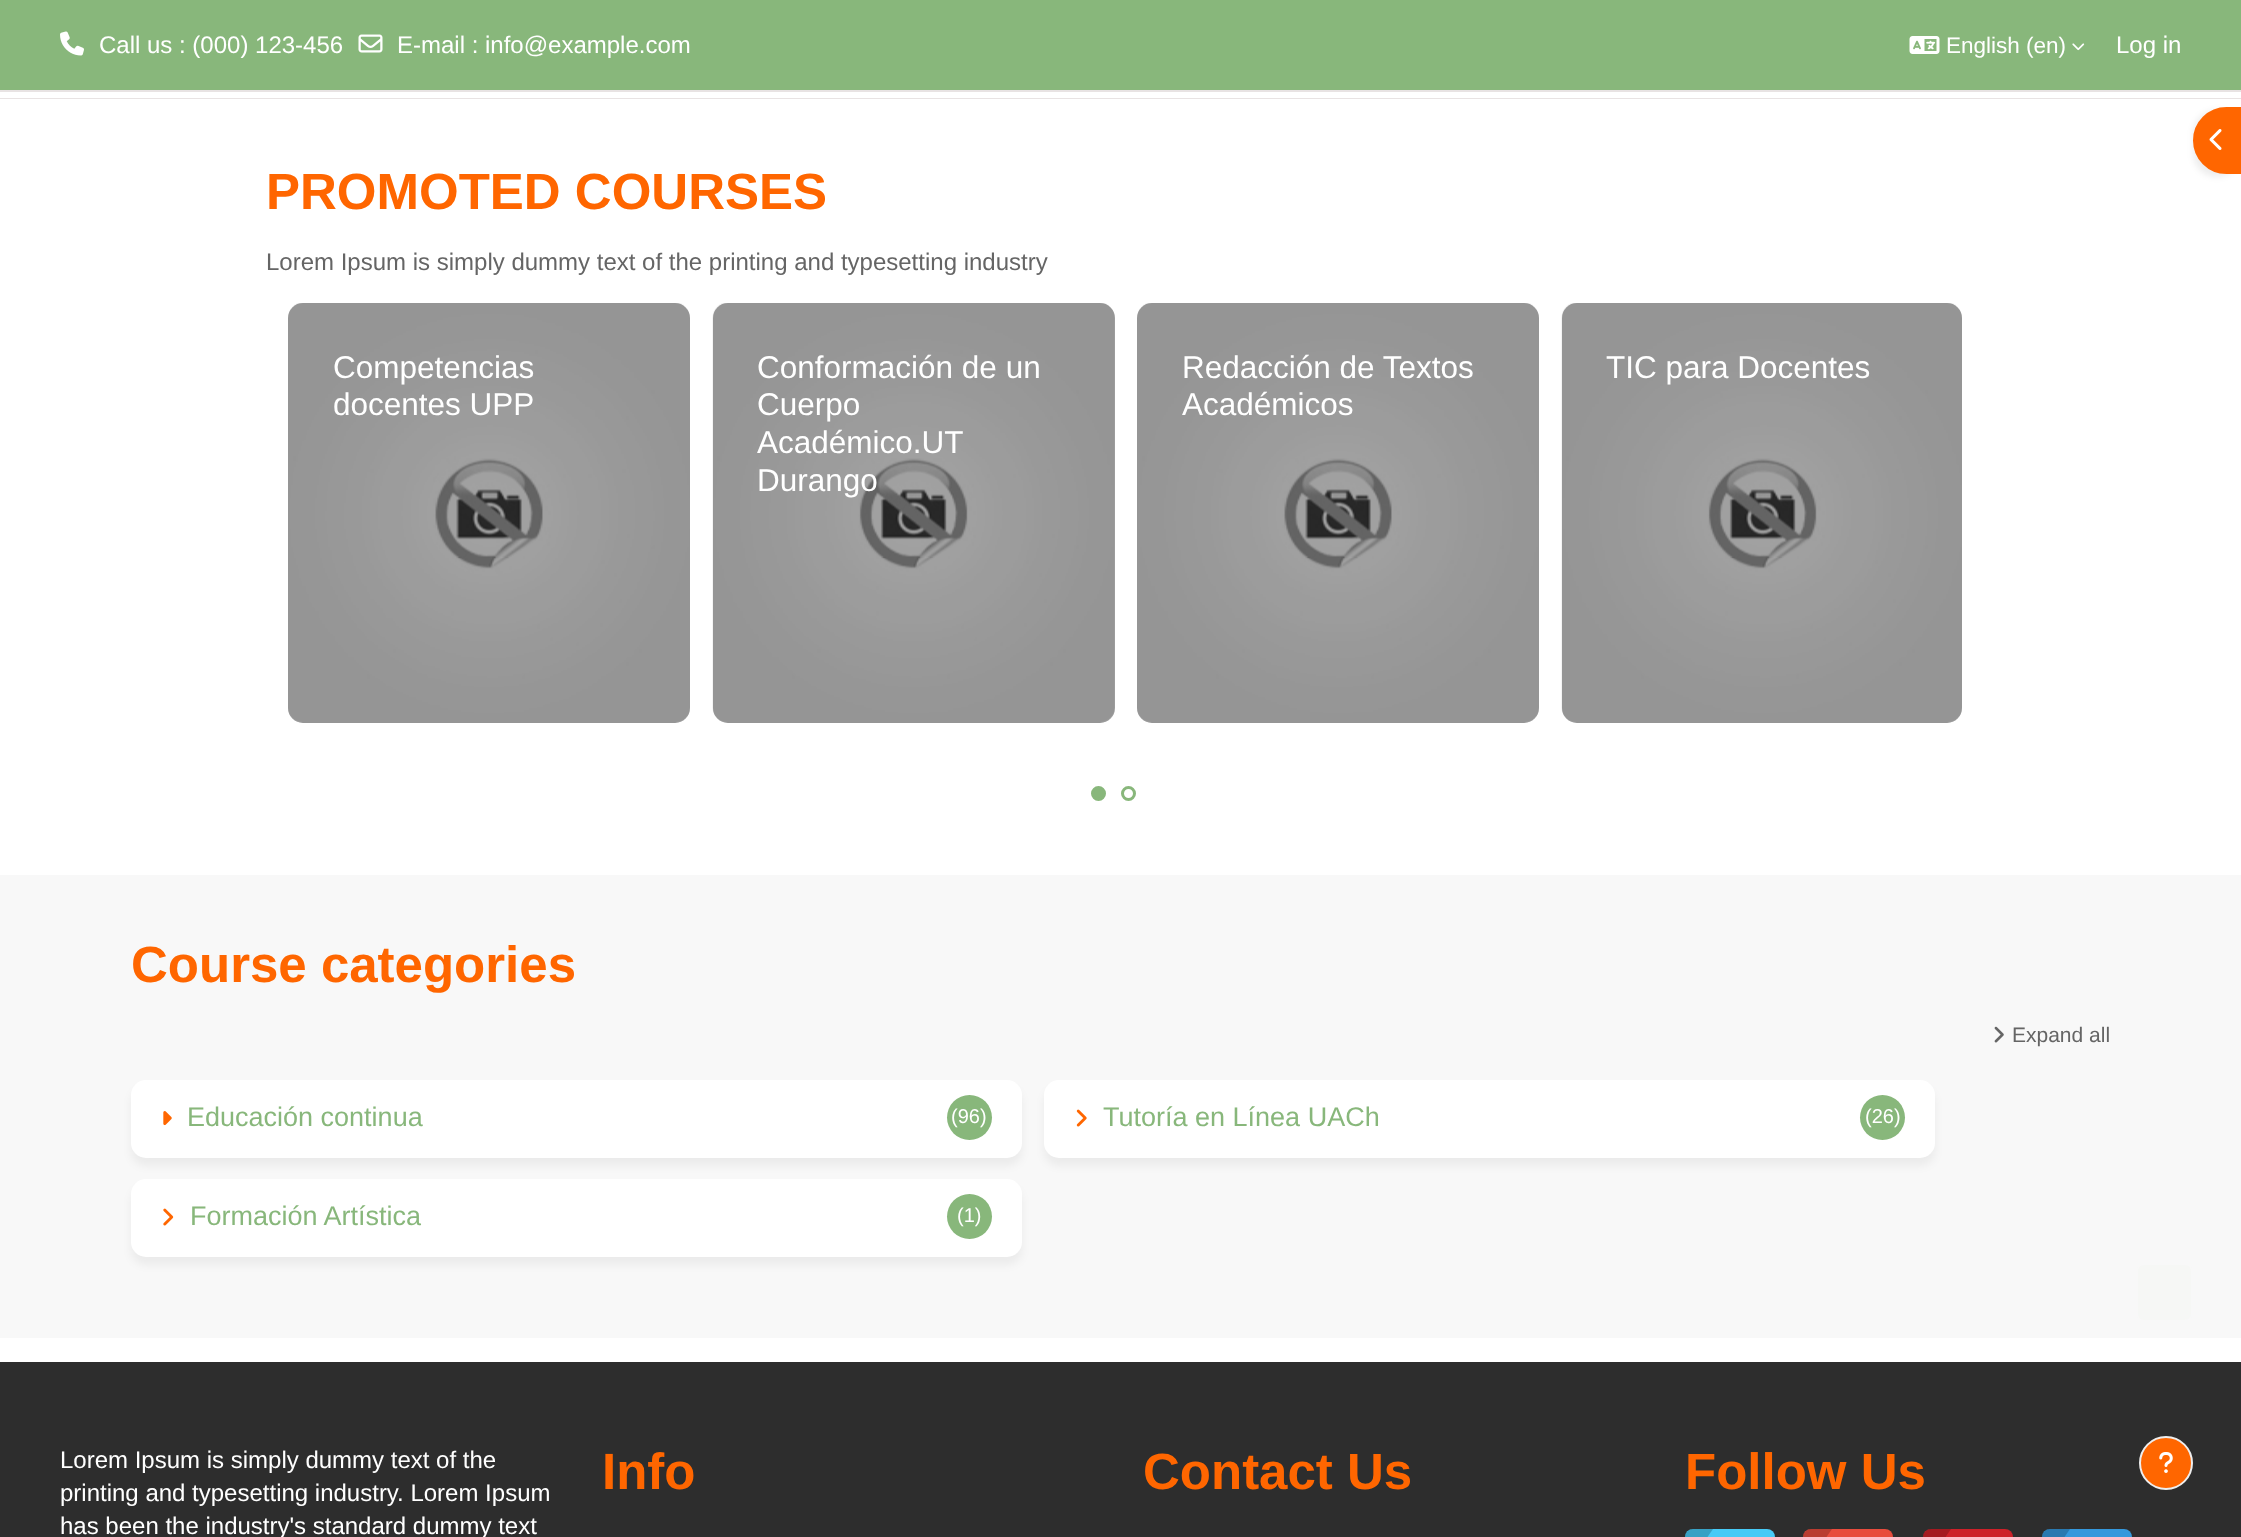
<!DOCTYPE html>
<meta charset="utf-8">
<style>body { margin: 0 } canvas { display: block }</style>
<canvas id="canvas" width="2241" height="1537"></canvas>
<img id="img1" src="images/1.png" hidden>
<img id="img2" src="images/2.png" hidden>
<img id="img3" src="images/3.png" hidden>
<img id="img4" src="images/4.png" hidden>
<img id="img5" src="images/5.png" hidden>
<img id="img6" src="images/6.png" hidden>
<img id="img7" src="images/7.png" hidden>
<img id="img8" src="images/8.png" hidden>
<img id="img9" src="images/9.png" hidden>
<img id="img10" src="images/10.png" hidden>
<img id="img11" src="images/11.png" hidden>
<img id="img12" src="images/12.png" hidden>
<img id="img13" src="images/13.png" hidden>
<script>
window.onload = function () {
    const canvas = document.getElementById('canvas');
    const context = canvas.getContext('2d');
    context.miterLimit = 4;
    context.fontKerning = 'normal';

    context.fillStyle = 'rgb(255, 255, 255)';
    context.fillRect(0, 0, 2241, 1537);
    context.fillStyle = 'rgb(136, 183, 123)';
    context.fillRect(0, 0, 2241, 90);
    context.fillStyle = 'rgb(232, 227, 227)';
    context.fillRect(0, 90, 2241, 2);
    context.drawImage(document.getElementById('img1'), 60, 31, 24, 25);
    context.drawImage(document.getElementById('img2'), 358, 34, 25, 19);
    context.drawImage(document.getElementById('img3'), 1909, 36, 31, 18);
    context.drawImage(document.getElementById('img4'), 2072, 43, 13, 8);
    context.fillRect(0, 98, 2241, 1);
    context.fillStyle = 'rgba(0, 0, 0, 0.07)';
    context.filter = 'blur(3px)';
    context.beginPath();
    context.roundRect(2193, 110, 48, 67, 34);
    context.fill();
    context.filter = 'none';
    context.fillStyle = 'rgb(255, 102, 0)';
    context.beginPath();
    context.roundRect(2194, 108, 46, 65, [32.5, 0, 0, 32.5]);
    context.fill();
    context.strokeStyle = 'rgb(255, 102, 0)';
    context.lineWidth = 2;
    context.stroke();
    context.drawImage(document.getElementById('img5'), 2209, 129, 13, 21);
    context.drawImage(document.getElementById('img6'), 288, 303, 402, 420);
    context.fillStyle = 'rgba(0, 0, 0, 0.2)';
    context.beginPath();
    context.roundRect(288, 303, 402, 420, 15);
    context.fill();
    context.beginPath();
    context.roundRect(288, 303, 402, 420, 15);
    context.fill();
    context.drawImage(document.getElementById('img7'), 712, 303, 403, 420);
    context.beginPath();
    context.roundRect(713, 303, 402, 420, 15);
    context.fill();
    context.beginPath();
    context.roundRect(713, 303, 402, 420, 15);
    context.fill();
    context.drawImage(document.getElementById('img6'), 1137, 303, 402, 420);
    context.beginPath();
    context.roundRect(1137, 303, 402, 420, 15);
    context.fill();
    context.beginPath();
    context.roundRect(1137, 303, 402, 420, 15);
    context.fill();
    context.drawImage(document.getElementById('img8'), 1561, 303, 401, 420);
    context.beginPath();
    context.roundRect(1562, 303, 400, 420, 15);
    context.fill();
    context.beginPath();
    context.roundRect(1562, 303, 400, 420, 15);
    context.fill();
    context.fillStyle = 'rgb(136, 183, 123)';
    context.beginPath();
    context.arc(1098.5, 793.5, 6, 0, 2 * Math.PI);
    context.fill();
    context.strokeStyle = 'rgb(136, 183, 123)';
    context.lineWidth = 3;
    context.stroke();
    context.beginPath();
    context.arc(1128.5, 793.5, 6, 0, 2 * Math.PI);
    context.stroke();
    context.fillStyle = 'rgb(248, 248, 248)';
    context.fillRect(0, 875, 2241, 463);
    context.drawImage(document.getElementById('img9'), 1994, 1026, 10, 17);
    context.fillStyle = 'rgba(0, 0, 0, 0.05)';
    context.filter = 'blur(4px)';
    context.beginPath();
    context.roundRect(131, 1088, 891, 78, 15);
    context.fill();
    context.filter = 'none';
    context.fillStyle = 'rgb(255, 255, 255)';
    context.beginPath();
    context.roundRect(131, 1080, 891, 78, 15);
    context.fill();
    context.drawImage(document.getElementById('img10'), 163, 1111, 9, 15);
    context.fillStyle = 'rgb(136, 183, 123)';
    context.beginPath();
    context.arc(969.5, 1117.5, 22.5, 0, 2 * Math.PI);
    context.fill();
    context.fillStyle = 'rgba(0, 0, 0, 0.05)';
    context.filter = 'blur(4px)';
    context.beginPath();
    context.roundRect(1044, 1088, 891, 78, 15);
    context.fill();
    context.filter = 'none';
    context.fillStyle = 'rgb(255, 255, 255)';
    context.beginPath();
    context.roundRect(1044, 1080, 891, 78, 15);
    context.fill();
    context.drawImage(document.getElementById('img11'), 1076, 1109, 11, 18);
    context.fillStyle = 'rgb(136, 183, 123)';
    context.beginPath();
    context.arc(1882.5, 1117.5, 22.5, 0, 2 * Math.PI);
    context.fill();
    context.fillStyle = 'rgba(0, 0, 0, 0.05)';
    context.filter = 'blur(4px)';
    context.beginPath();
    context.roundRect(131, 1187, 891, 78, 15);
    context.fill();
    context.filter = 'none';
    context.fillStyle = 'rgb(255, 255, 255)';
    context.beginPath();
    context.roundRect(131, 1179, 891, 78, 15);
    context.fill();
    context.drawImage(document.getElementById('img12'), 163, 1208, 11, 18);
    context.fillStyle = 'rgb(136, 183, 123)';
    context.beginPath();
    context.arc(969.5, 1216.5, 22.5, 0, 2 * Math.PI);
    context.fill();
    context.fillStyle = 'rgb(246, 247, 245)';
    context.beginPath();
    context.roundRect(2137, 1264, 55, 57, 7);
    context.fill();
    context.strokeStyle = 'rgb(248, 248, 248)';
    context.lineWidth = 2;
    context.stroke();
    context.fillStyle = 'rgb(45, 45, 45)';
    context.fillRect(0, 1362, 2241, 175);
    context.fillStyle = 'rgb(71, 202, 246)';
    context.beginPath();
    context.roundRect(1685, 1529, 90, 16, 8);
    context.fill();
    context.fillStyle = 'rgba(0, 0, 0, 0.2)';
    context.beginPath();
    context.moveTo(1693, 1529);
    context.lineTo(1713, 1529);
    context.lineTo(1685, 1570);
    context.lineTo(1685, 1537);
    context.bezierCurveTo(1685, 1533, 1689, 1529, 1693, 1529);
    context.closePath();
    context.fill();
    context.fillStyle = 'rgb(232, 76, 61)';
    context.beginPath();
    context.roundRect(1803, 1529, 90, 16, 8);
    context.fill();
    context.fillStyle = 'rgba(0, 0, 0, 0.2)';
    context.beginPath();
    context.moveTo(1811, 1529);
    context.lineTo(1832, 1529);
    context.lineTo(1803, 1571);
    context.lineTo(1803, 1537);
    context.bezierCurveTo(1803, 1533, 1807, 1529, 1811, 1529);
    context.closePath();
    context.fill();
    context.fillStyle = 'rgb(205, 33, 41)';
    context.beginPath();
    context.roundRect(1923, 1529, 90, 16, 8);
    context.fill();
    context.fillStyle = 'rgba(0, 0, 0, 0.2)';
    context.beginPath();
    context.moveTo(1931, 1529);
    context.lineTo(1951, 1529);
    context.lineTo(1923, 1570);
    context.lineTo(1923, 1537);
    context.bezierCurveTo(1923, 1533, 1927, 1529, 1931, 1529);
    context.closePath();
    context.fill();
    context.fillStyle = 'rgb(53, 152, 220)';
    context.beginPath();
    context.roundRect(2042, 1529, 90, 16, 8);
    context.fill();
    context.fillStyle = 'rgba(0, 0, 0, 0.2)';
    context.beginPath();
    context.moveTo(2050, 1529);
    context.lineTo(2070, 1529);
    context.lineTo(2042, 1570);
    context.lineTo(2042, 1537);
    context.bezierCurveTo(2042, 1533, 2046, 1529, 2050, 1529);
    context.closePath();
    context.fill();
    context.fillStyle = 'rgb(255, 102, 0)';
    context.beginPath();
    context.arc(2166, 1463, 26, 0, 2 * Math.PI);
    context.fill();
    context.strokeStyle = 'rgb(238, 238, 238)';
    context.stroke();
    context.drawImage(document.getElementById('img13'), 2159, 1452, 14, 21);
    context.font = '24px Liberation Sans';
    context.fillStyle = 'rgb(255, 255, 255)';
    context.fillText('Call us : (000) 123-456', 99, 53);
    context.fillText('E-mail : info@example.com', 397, 53);
    context.font = '22.5px Liberation Sans';
    context.fillText('English (en)', 1946, 53);
    context.font = '24px Liberation Sans';
    context.fillText('Log in', 2116, 53);
    context.font = 'bold 51px Liberation Sans';
    context.fillStyle = 'rgb(255, 102, 0)';
    context.fillText('PROMOTED COURSES', 266, 209);
    context.font = '24px Liberation Sans';
    context.fillStyle = 'rgb(101, 101, 101)';
    context.fillText('Lorem Ipsum is simply dummy text of the printing and typesetting industry', 266, 270);
    context.font = '31.5px Liberation Sans';
    context.fillStyle = 'rgb(255, 255, 255)';
    context.fillText('Competencias', 333, 378);
    context.fillText('docentes UPP', 333, 415);
    context.fillText('Conformación de un', 757, 378);
    context.fillText('Cuerpo', 757, 415);
    context.fillText('Académico.UT', 757, 453);
    context.fillText('Durango', 757, 491);
    context.fillText('Redacción de Textos', 1182, 378);
    context.fillText('Académicos', 1182, 415);
    context.fillText('TIC para Docentes', 1606, 378);
    context.font = 'bold 51px Liberation Sans';
    context.fillStyle = 'rgb(255, 102, 0)';
    context.fillText('Course categories', 131, 982);
    context.font = '21px Liberation Sans';
    context.fillStyle = 'rgb(101, 101, 101)';
    context.fillText('Expand all', 2012, 1042);
    context.font = '27px Liberation Sans';
    context.fillStyle = 'rgb(136, 183, 123)';
    context.fillText('Educación continua', 187, 1126);
    context.font = '20px Liberation Sans';
    context.fillStyle = 'rgb(255, 255, 255)';
    context.fillText('(96)', 951, 1123);
    context.font = '27px Liberation Sans';
    context.fillStyle = 'rgb(136, 183, 123)';
    context.fillText('Tutoría en Línea UACh', 1103, 1126);
    context.font = '20px Liberation Sans';
    context.fillStyle = 'rgb(255, 255, 255)';
    context.fillText('(26)', 1865, 1123);
    context.font = '27px Liberation Sans';
    context.fillStyle = 'rgb(136, 183, 123)';
    context.fillText('Formación Artística', 190, 1225);
    context.font = '20px Liberation Sans';
    context.fillStyle = 'rgb(255, 255, 255)';
    context.fillText('(1)', 957, 1222);
    context.font = '24px Liberation Sans';
    context.fillText('Lorem Ipsum is simply dummy text of the', 60, 1468);
    context.fillText('printing and typesetting industry. Lorem Ipsum', 60, 1501);
    context.fillText('has been the industry\'s standard dummy text', 60, 1534);
    context.font = 'bold 51px Liberation Sans';
    context.fillStyle = 'rgb(255, 102, 0)';
    context.fillText('Info', 602, 1489);
    context.fillText('Contact Us', 1143, 1489);
    context.fillText('Follow Us', 1685, 1489);
};
</script>
